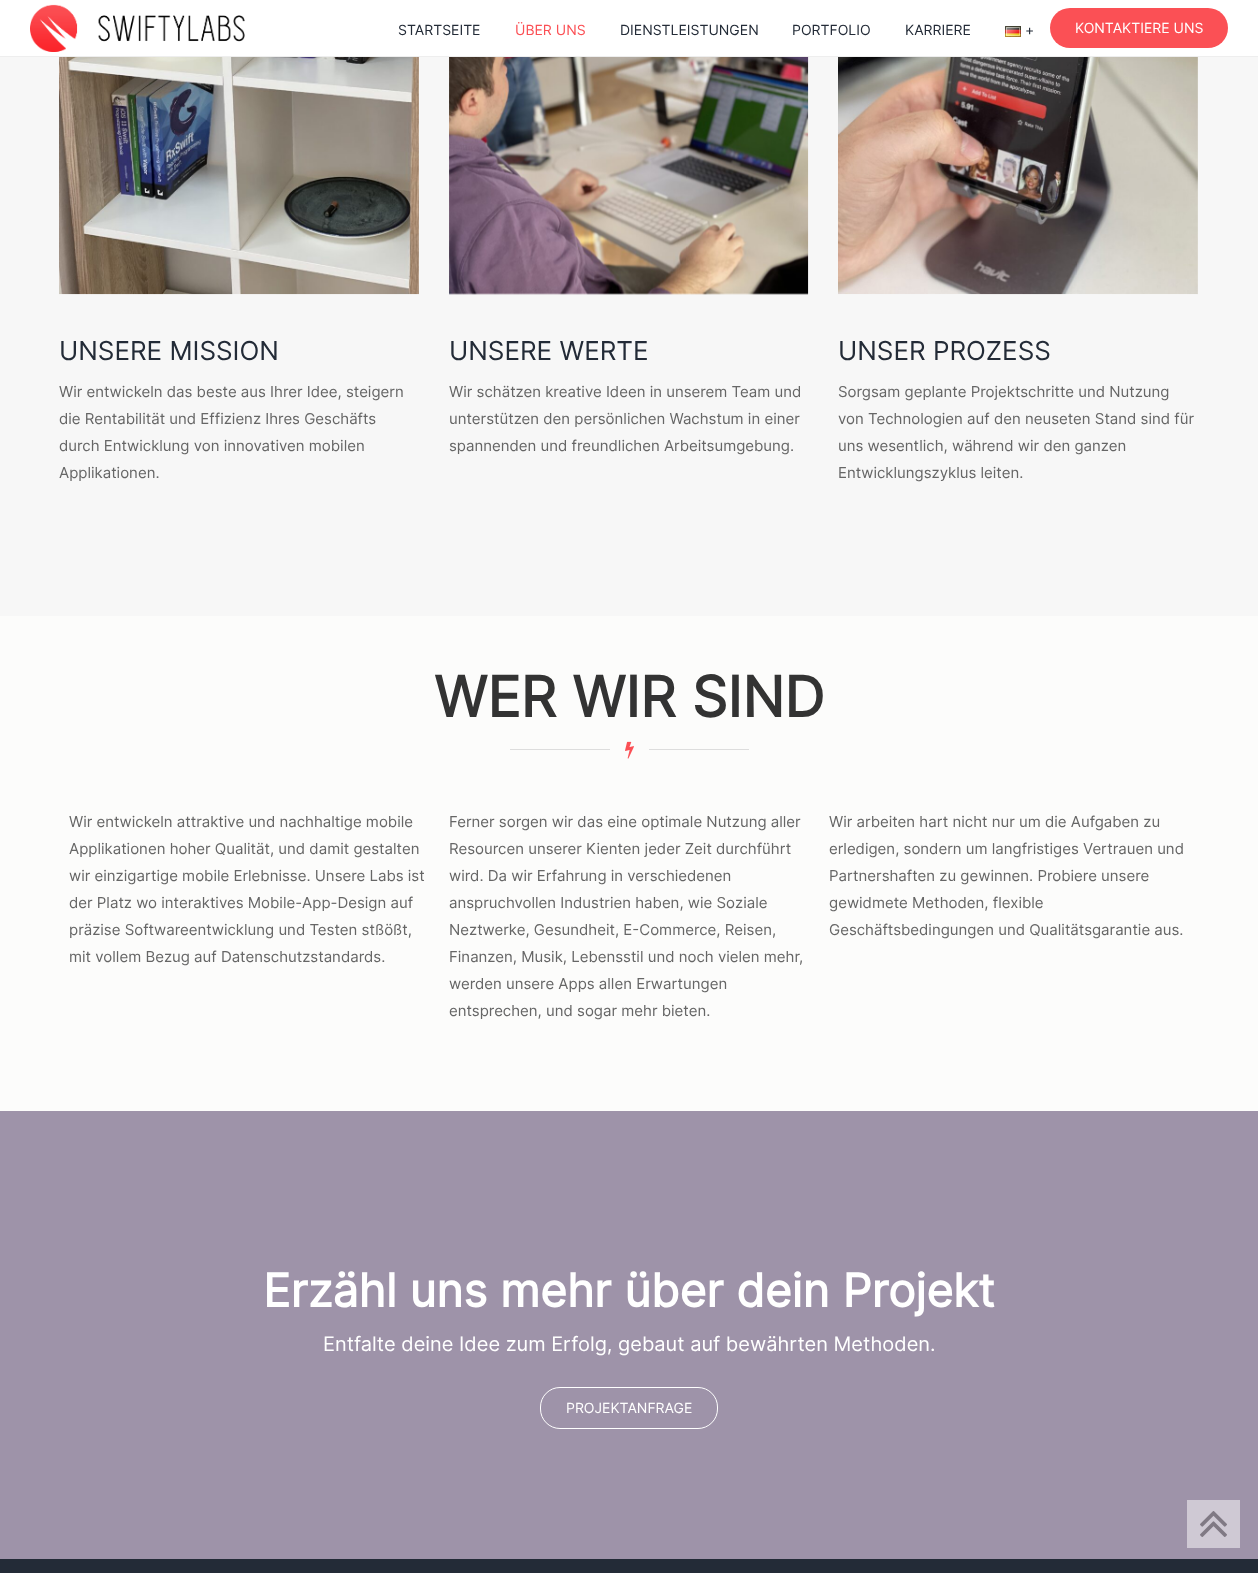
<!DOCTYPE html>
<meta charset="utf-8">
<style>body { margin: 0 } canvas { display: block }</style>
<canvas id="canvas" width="1258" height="1573"></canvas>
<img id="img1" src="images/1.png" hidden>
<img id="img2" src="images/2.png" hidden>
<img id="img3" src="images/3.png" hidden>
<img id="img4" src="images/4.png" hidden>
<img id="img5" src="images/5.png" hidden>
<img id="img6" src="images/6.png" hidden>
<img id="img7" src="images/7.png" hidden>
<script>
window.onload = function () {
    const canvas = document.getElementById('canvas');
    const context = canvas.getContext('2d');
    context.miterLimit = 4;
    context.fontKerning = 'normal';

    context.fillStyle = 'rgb(35, 43, 55)';
    context.fillRect(0, 0, 1258, 1573);
    context.fillStyle = 'rgb(255, 255, 255)';
    context.fillRect(0, 0, 1258, 56);
    context.fillStyle = 'rgb(238, 238, 238)';
    context.fillRect(0, 56, 1258, 1);
    context.drawImage(document.getElementById('img1'), 30, 4, 215, 48);
    context.drawImage(document.getElementById('img2'), 1005, 26, 16, 11);
    context.fillStyle = 'rgb(251, 80, 85)';
    context.beginPath();
    context.roundRect(1050, 8, 178, 40, 20);
    context.fill();
    context.fillStyle = 'rgb(247, 247, 247)';
    context.fillRect(0, 57, 1258, 559);
    context.drawImage(document.getElementById('img3'), 59, 57, 360, 238);
    context.drawImage(document.getElementById('img4'), 449, 57, 360, 238);
    context.drawImage(document.getElementById('img5'), 838, 57, 360, 238);
    context.fillStyle = 'rgb(252, 252, 251)';
    context.fillRect(0, 616, 1258, 495);
    context.fillStyle = 'rgb(221, 221, 221)';
    context.fillRect(510, 749, 100, 1);
    context.drawImage(document.getElementById('img6'), 625, 741, 9, 18);
    context.fillRect(649, 749, 100, 1);
    context.fillStyle = 'rgb(158, 147, 169)';
    context.fillRect(0, 1111, 1258, 448);
    context.beginPath();
    context.roundRect(540.5, 1387.5, 177, 41, 19.5);
    context.strokeStyle = 'rgb(255, 255, 255)';
    context.stroke();
    context.drawImage(document.getElementById('img7'), 1187, 1500, 53, 48);
    context.font = '14px Inter';
    context.fillStyle = 'rgb(35, 43, 55)';
    context.fillText('STARTSEITE', 398, 35);
    context.fillStyle = 'rgb(251, 80, 85)';
    context.fillText('ÜBER UNS', 515, 35);
    context.fillStyle = 'rgb(35, 43, 55)';
    context.fillText('DIENSTLEISTUNGEN', 620, 35);
    context.fillText('PORTFOLIO', 792, 35);
    context.fillText('KARRIERE', 905, 35);
    context.fillText('+', 1025, 35);
    context.fillStyle = 'rgb(255, 255, 255)';
    context.fillText('KONTAKTIERE UNS', 1075, 33);
    context.font = '26px Inter';
    context.fillStyle = 'rgb(35, 43, 55)';
    context.fillText('UNSERE MISSION', 59, 360);
    context.font = '15px Inter';
    context.fillStyle = 'rgb(102, 102, 102)';
    context.fillText('Wir entwickeln das beste aus Ihrer Idee, steigern', 59, 397);
    context.fillText('die Rentabilität und Effizienz Ihres Geschäfts', 59, 424);
    context.fillText('durch Entwicklung von innovativen mobilen', 59, 451);
    context.fillText('Applikationen.', 59, 478);
    context.font = '26px Inter';
    context.fillStyle = 'rgb(35, 43, 55)';
    context.fillText('UNSERE WERTE', 449, 360);
    context.font = '15px Inter';
    context.fillStyle = 'rgb(102, 102, 102)';
    context.fillText('Wir schätzen kreative Ideen in unserem Team und', 449, 397);
    context.fillText('unterstützen den persönlichen Wachstum in einer', 449, 424);
    context.fillText('spannenden und freundlichen Arbeitsumgebung.', 449, 451);
    context.font = '26px Inter';
    context.fillStyle = 'rgb(35, 43, 55)';
    context.fillText('UNSER PROZESS', 838, 360);
    context.font = '15px Inter';
    context.fillStyle = 'rgb(102, 102, 102)';
    context.fillText('Sorgsam geplante Projektschritte und Nutzung', 838, 397);
    context.fillText('von Technologien auf den neuseten Stand sind für', 838, 424);
    context.fillText('uns wesentlich, während wir den ganzen', 838, 451);
    context.fillText('Entwicklungszyklus leiten.', 838, 478);
    context.font = 'bold 56px Inter';
    context.fillStyle = 'rgb(51, 51, 51)';
    context.fillText('WER WIR SIND', 434, 717);
    context.font = '15px Inter';
    context.fillStyle = 'rgb(102, 102, 102)';
    context.fillText('Wir entwickeln attraktive und nachhaltige mobile', 69, 827);
    context.fillText('Applikationen hoher Qualität, und damit gestalten', 69, 854);
    context.fillText('wir einzigartige mobile Erlebnisse. Unsere Labs ist', 69, 881);
    context.fillText('der Platz wo interaktives Mobile-App-Design auf', 69, 908);
    context.fillText('präzise Softwareentwicklung und Testen stßößt,', 69, 935);
    context.fillText('mit vollem Bezug auf Datenschutzstandards.', 69, 962);
    context.fillText('Ferner sorgen wir das eine optimale Nutzung aller', 449, 827);
    context.fillText('Resourcen unserer Kienten jeder Zeit durchführt', 449, 854);
    context.fillText('wird. Da wir Erfahrung in verschiedenen', 449, 881);
    context.fillText('anspruchvollen Industrien haben, wie Soziale', 449, 908);
    context.fillText('Neztwerke, Gesundheit, E-Commerce, Reisen,', 449, 935);
    context.fillText('Finanzen, Musik, Lebensstil und noch vielen mehr,', 449, 962);
    context.fillText('werden unsere Apps allen Erwartungen', 449, 989);
    context.fillText('entsprechen, und sogar mehr bieten.', 449, 1016);
    context.fillText('Wir arbeiten hart nicht nur um die Aufgaben zu', 829, 827);
    context.fillText('erledigen, sondern um langfristiges Vertrauen und', 829, 854);
    context.fillText('Partnershaften zu gewinnen. Probiere unsere', 829, 881);
    context.fillText('gewidmete Methoden, flexible', 829, 908);
    context.fillText('Geschäftsbedingungen und Qualitätsgarantie aus.', 829, 935);
    context.font = 'bold 46px Inter';
    context.fillStyle = 'rgb(255, 255, 255)';
    context.fillText('Erzähl uns mehr über dein Projekt', 263, 1307);
    context.font = '20px Inter';
    context.fillText('Entfalte deine Idee zum Erfolg, gebaut auf bewährten Methoden.', 323, 1351);
    context.font = '14px Inter';
    context.fillText('PROJEKTANFRAGE', 566, 1413);
};
</script>
